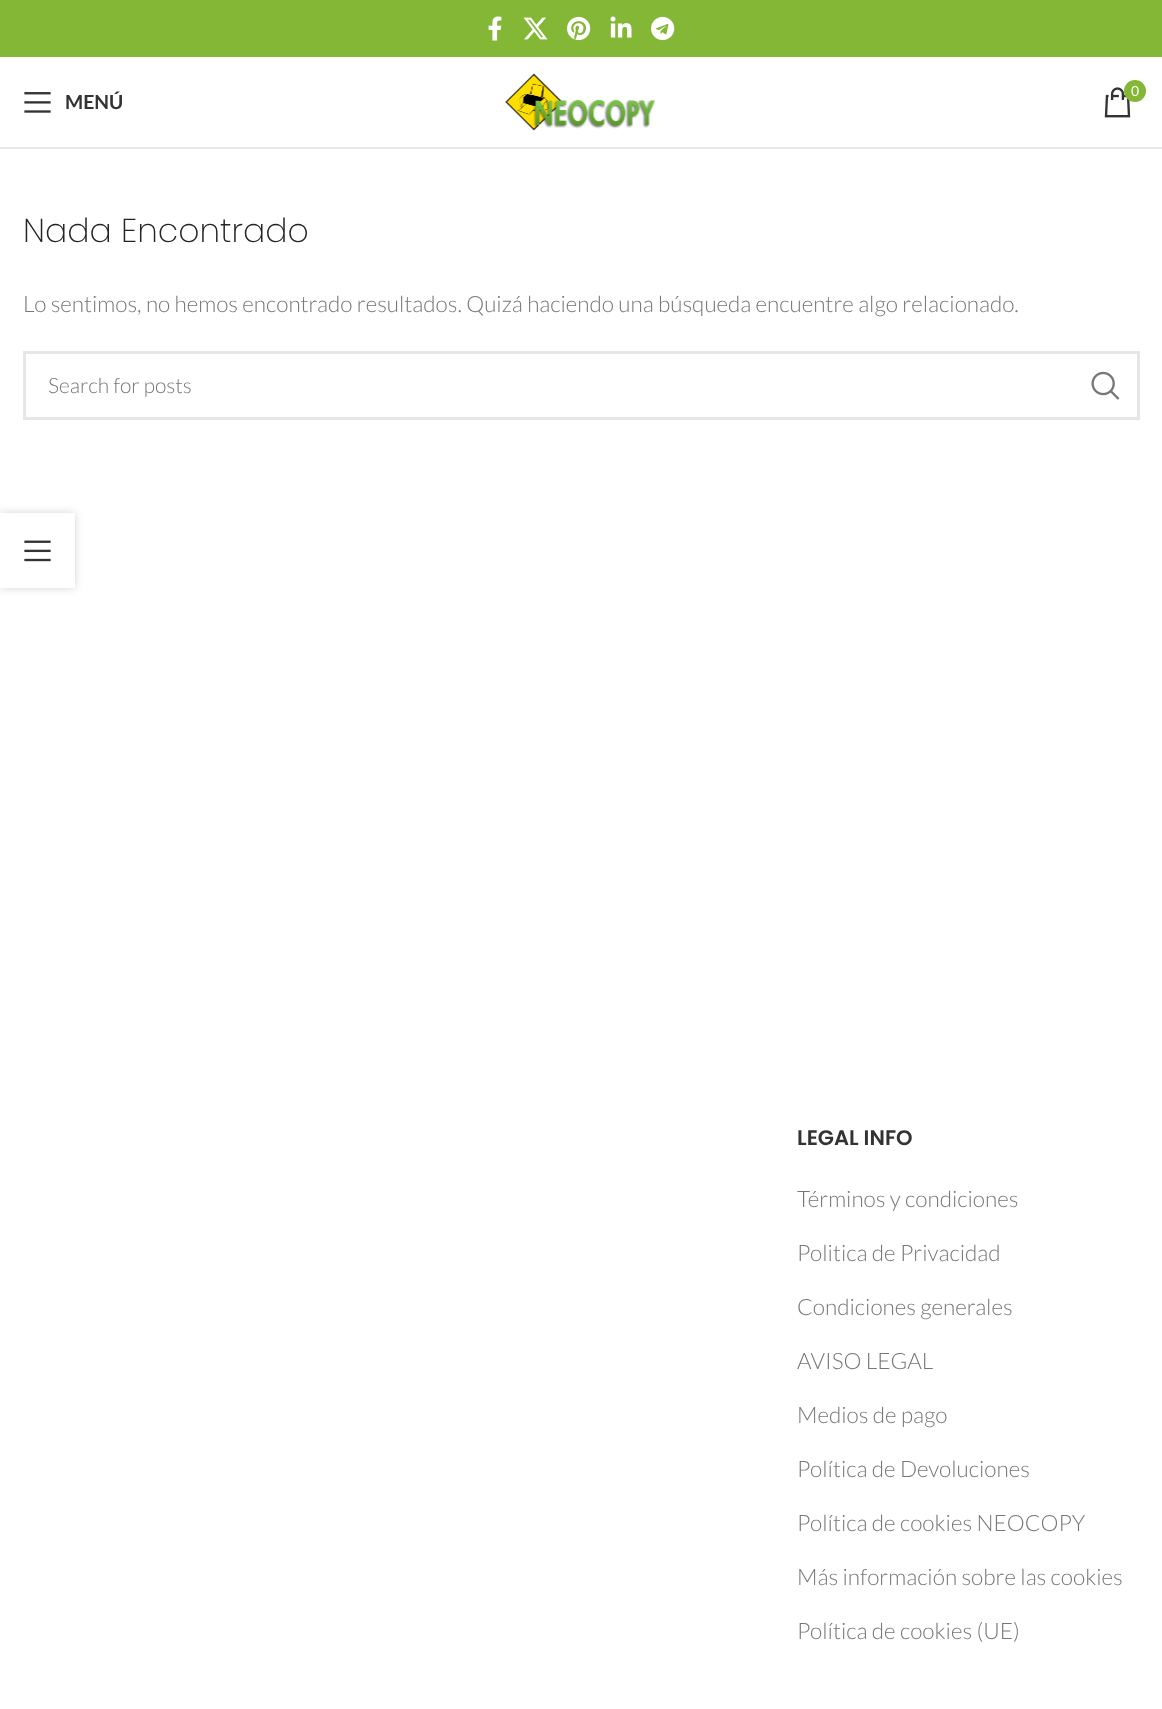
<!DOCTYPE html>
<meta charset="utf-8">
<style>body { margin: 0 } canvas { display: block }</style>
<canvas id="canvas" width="1162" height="1709"></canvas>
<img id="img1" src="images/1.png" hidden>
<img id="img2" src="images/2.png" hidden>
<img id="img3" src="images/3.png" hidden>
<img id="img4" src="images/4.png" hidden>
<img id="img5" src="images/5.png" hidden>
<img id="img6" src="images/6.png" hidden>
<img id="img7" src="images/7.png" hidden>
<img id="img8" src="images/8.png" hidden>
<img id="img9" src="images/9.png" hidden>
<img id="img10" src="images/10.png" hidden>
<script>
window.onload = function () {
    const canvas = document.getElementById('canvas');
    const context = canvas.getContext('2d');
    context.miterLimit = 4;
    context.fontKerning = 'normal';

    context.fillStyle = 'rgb(255, 255, 255)';
    context.fillRect(0, 0, 1162, 1709);
    context.fillStyle = 'rgb(131, 183, 53)';
    context.fillRect(0, 0, 1162, 57);
    context.drawImage(document.getElementById('img1'), 488, 16, 14, 25);
    context.drawImage(document.getElementById('img2'), 523, 17, 25, 23);
    context.drawImage(document.getElementById('img3'), 567, 16, 24, 25);
    context.drawImage(document.getElementById('img4'), 610, 16, 22, 22);
    context.drawImage(document.getElementById('img5'), 651, 16, 24, 25);
    context.fillStyle = 'rgb(232, 232, 232)';
    context.fillRect(0, 147, 1162, 2);
    context.drawImage(document.getElementById('img6'), 24, 92, 27, 21);
    context.drawImage(document.getElementById('img7'), 505, 73, 151, 58);
    context.drawImage(document.getElementById('img8'), 1104, 87, 27, 31);
    context.fillStyle = 'rgb(131, 183, 53)';
    context.beginPath();
    context.arc(1135, 91, 11, 0, 2 * Math.PI);
    context.fill();
    context.strokeStyle = 'rgb(230, 230, 230)';
    context.lineWidth = 3;
    context.strokeRect(24.5, 352.5, 1114, 66);
    context.drawImage(document.getElementById('img9'), 1091, 371, 29, 29);
    context.save();
    context.beginPath();
    context.moveTo(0, 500);
    context.lineTo(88, 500);
    context.lineTo(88, 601);
    context.lineTo(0, 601);
    context.closePath();
    context.moveTo(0, 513);
    context.lineTo(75, 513);
    context.lineTo(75, 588);
    context.lineTo(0, 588);
    context.closePath();
    context.clip('evenodd');
    context.fillStyle = 'rgba(0, 0, 0, 0.17)';
    context.filter = 'blur(4px)';
    context.beginPath();
    context.rect(0, 513, 75, 75);
    context.fill();
    context.filter = 'none';
    context.restore();
    context.drawImage(document.getElementById('img10'), 24, 540, 27, 22);
    context.font = 'bold 19.5px Lato';
    context.fillStyle = 'rgb(51, 51, 51)';
    context.fillText('MENÚ', 65, 109);
    context.font = '14px Lato';
    context.fillStyle = 'rgb(255, 255, 255)';
    context.fillText('0', 1131, 96);
    context.font = '200 33px Poppins';
    context.fillStyle = 'rgb(36, 36, 36)';
    context.fillText('Nada Encontrado', 23, 242);
    context.font = '300 22.5px Lato';
    context.fillStyle = 'rgb(119, 119, 119)';
    context.fillText('Lo sentimos, no hemos encontrado resultados. Quizá haciendo una búsqueda encuentre algo relacionado.', 23, 312);
    context.font = '300 21px Lato';
    context.fillText('Search for posts', 48, 393);
    context.font = '600 21px Poppins';
    context.fillStyle = 'rgb(51, 51, 51)';
    context.fillText('LEGAL INFO', 797, 1145);
    context.font = '300 22.5px Lato';
    context.fillStyle = 'rgb(119, 119, 119)';
    context.fillText('Términos y condiciones', 797, 1207);
    context.fillText('Politica de Privacidad', 797, 1261);
    context.fillText('Condiciones generales', 797, 1315);
    context.fillText('AVISO LEGAL', 797, 1369);
    context.fillText('Medios de pago', 797, 1423);
    context.fillText('Política de Devoluciones', 797, 1477);
    context.fillText('Política de cookies NEOCOPY', 797, 1531);
    context.fillText('Más información sobre las cookies', 797, 1585);
    context.fillText('Política de cookies (UE)', 797, 1639);
};
</script>
